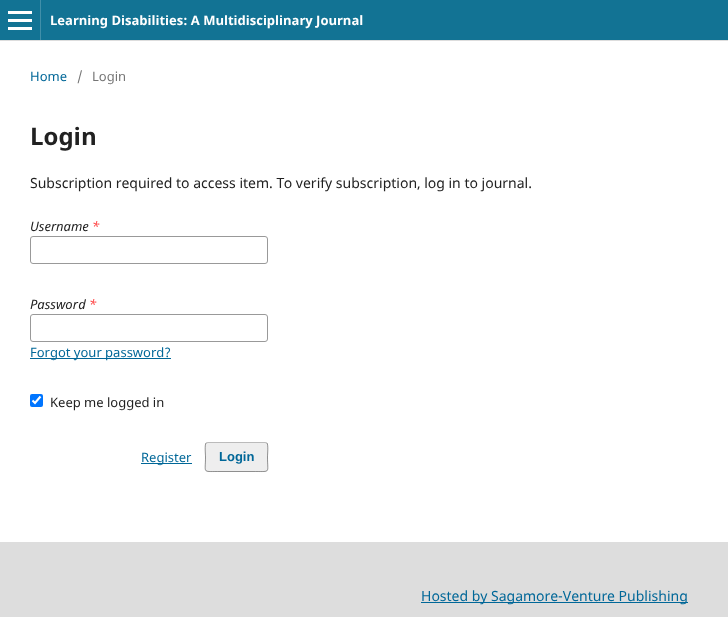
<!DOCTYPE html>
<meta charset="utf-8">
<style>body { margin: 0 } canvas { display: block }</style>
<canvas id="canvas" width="728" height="617"></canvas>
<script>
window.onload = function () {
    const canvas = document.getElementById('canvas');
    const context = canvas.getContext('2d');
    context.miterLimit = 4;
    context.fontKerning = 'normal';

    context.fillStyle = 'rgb(255, 255, 255)';
    context.fillRect(0, 0, 728, 617);
    context.fillStyle = 'rgb(18, 115, 148)';
    context.fillRect(0, 0, 728, 40);
    context.fillStyle = 'rgb(221, 221, 221)';
    context.fillRect(0, 40, 728, 1);
    context.fillStyle = 'rgb(65, 143, 169)';
    context.fillRect(40, 0, 1, 40);
    context.fillStyle = 'rgb(255, 255, 255)';
    context.fillRect(8, 27, 24, 3);
    context.fillRect(8, 11, 24, 3);
    context.fillRect(8, 19, 24, 3);
    context.beginPath();
    context.roundRect(30.5, 236.5, 237, 27, 2.5);
    context.strokeStyle = 'rgb(153, 153, 153)';
    context.stroke();
    context.beginPath();
    context.roundRect(30.5, 314.5, 237, 27, 2.5);
    context.stroke();
    context.fillStyle = 'rgb(0, 103, 152)';
    context.fillRect(30, 358, 141, 1);
    context.fillStyle = 'rgb(0, 117, 255)';
    context.beginPath();
    context.roundRect(30, 394, 13, 13, 2);
    context.fill();
    context.beginPath();
    context.moveTo(32.5, 400.5);
    context.lineTo(35, 403);
    context.lineTo(40.5, 396.5);
    context.strokeStyle = 'rgb(255, 255, 255)';
    context.lineWidth = 2.1;
    context.stroke();
    context.fillStyle = 'rgb(0, 103, 152)';
    context.fillRect(141, 463, 51, 1);
    context.fillStyle = 'rgb(238, 238, 238)';
    context.beginPath();
    context.roundRect(205, 442, 63, 30, 3);
    context.fill();
    context.beginPath();
    context.moveTo(206, 443);
    context.lineTo(208, 442.5);
    context.lineTo(265, 442.5);
    context.lineTo(267, 443);
    context.strokeStyle = 'rgb(187, 187, 187)';
    context.lineWidth = 1;
    context.stroke();
    context.beginPath();
    context.moveTo(267, 443);
    context.bezierCurveTo(268.5, 445, 267.5, 454.5, 267.5, 457);
    context.bezierCurveTo(267.5, 473, 271, 471.5, 255.5, 471.5);
    context.lineTo(217.5, 471.5);
    context.bezierCurveTo(202, 471.5, 205.5, 473, 205.5, 457);
    context.bezierCurveTo(205.5, 454.5, 204.5, 445, 206, 443);
    context.strokeStyle = 'rgba(0, 0, 0, 0.4)';
    context.stroke();
    context.fillStyle = 'rgb(221, 221, 221)';
    context.fillRect(0, 542, 728, 75);
    context.fillStyle = 'rgb(0, 103, 152)';
    context.fillRect(421, 602, 267, 1);
    context.font = 'bold 13px Noto Sans';
    context.fillStyle = 'rgb(255, 255, 255)';
    context.fillText('Learning Disabilities: A Multidisciplinary Journal', 50, 25);
    context.font = '13px Noto Sans';
    context.fillStyle = 'rgb(0, 103, 152)';
    context.fillText('Home', 30, 81);
    context.fillStyle = 'rgb(117, 117, 117)';
    context.fillText('/', 77, 81);
    context.fillText('Login', 92, 81);
    context.font = 'bold 24px Noto Sans';
    context.fillStyle = 'rgb(33, 33, 33)';
    context.fillText('Login', 30, 145);
    context.font = '14px Noto Sans';
    context.fillText('Subscription required to access item. To verify subscription, log in to journal.', 30, 188);
    context.font = 'italic 13px Noto Sans';
    context.fillText('Username', 30, 231);
    context.fillStyle = 'rgb(255, 64, 64)';
    context.fillText('*', 92, 231);
    context.fillStyle = 'rgb(33, 33, 33)';
    context.fillText('Password', 30, 309);
    context.fillStyle = 'rgb(255, 64, 64)';
    context.fillText('*', 89, 309);
    context.font = '13px Noto Sans';
    context.fillStyle = 'rgb(0, 103, 152)';
    context.fillText('Forgot your password?', 30, 357);
    context.fillStyle = 'rgb(33, 33, 33)';
    context.fillText('Keep me logged in', 50, 407);
    context.fillStyle = 'rgb(0, 103, 152)';
    context.fillText('Register', 141, 462);
    context.font = 'bold 13px Liberation Sans';
    context.fillText('Login', 219, 461);
    context.font = '14px Noto Sans';
    context.fillText('Hosted by Sagamore-Venture Publishing', 421, 601);
};
</script>
